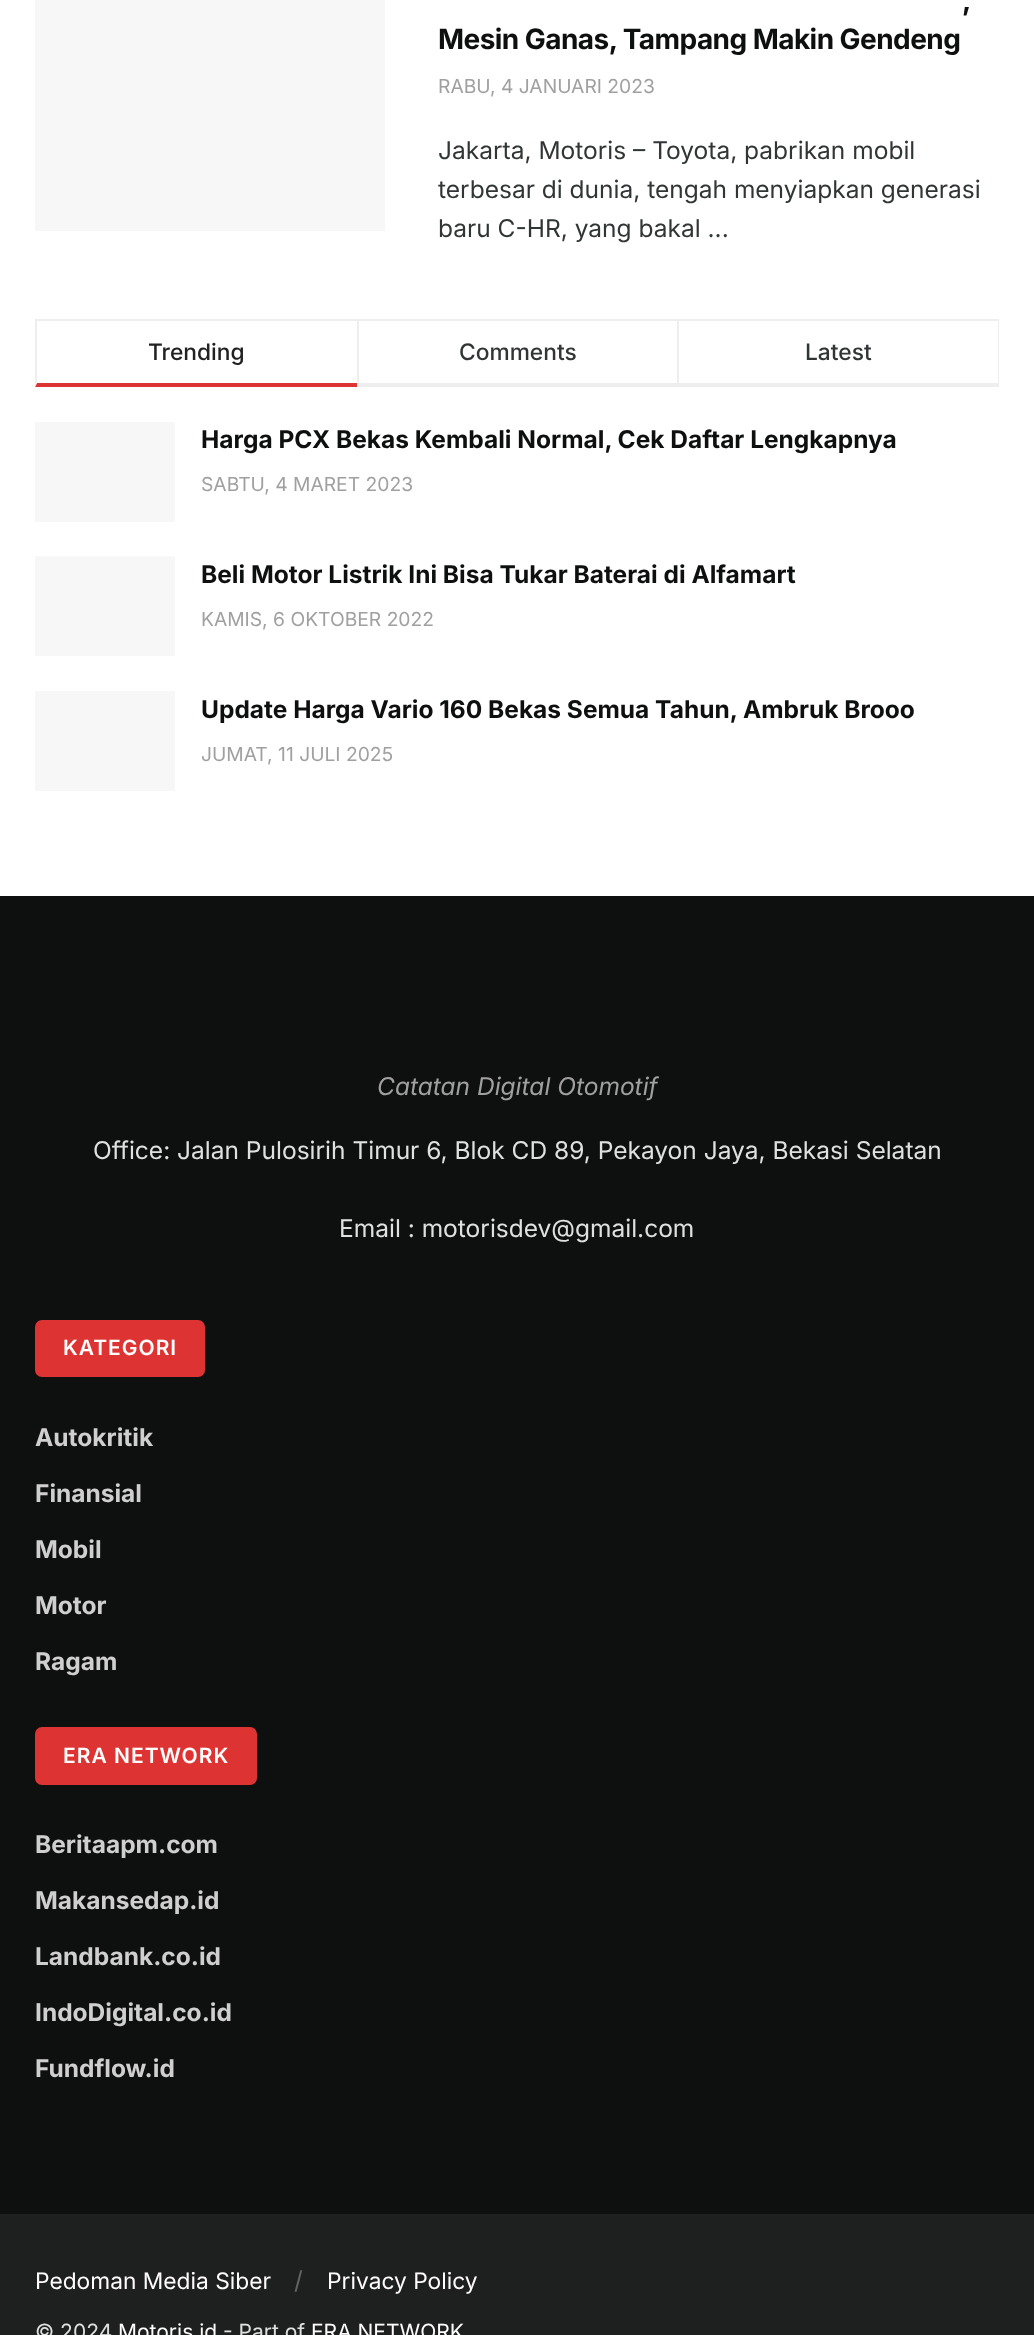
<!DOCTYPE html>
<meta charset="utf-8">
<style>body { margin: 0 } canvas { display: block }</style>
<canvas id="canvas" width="1034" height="2335"></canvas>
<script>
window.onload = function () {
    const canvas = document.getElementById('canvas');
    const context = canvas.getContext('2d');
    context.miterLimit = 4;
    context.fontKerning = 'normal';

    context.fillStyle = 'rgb(255, 255, 255)';
    context.fillRect(0, 0, 1034, 2335);
    context.fillStyle = 'rgb(247, 247, 247)';
    context.fillRect(35, 0, 350, 231);
    context.fillStyle = 'rgb(238, 238, 238)';
    context.fillRect(35, 319, 964, 2);
    context.fillStyle = 'rgb(221, 51, 51)';
    context.beginPath();
    context.moveTo(357, 387);
    context.lineTo(35, 387);
    context.lineTo(37, 383);
    context.lineTo(357, 383);
    context.closePath();
    context.fill();
    context.fillStyle = 'rgb(238, 238, 238)';
    context.beginPath();
    context.moveTo(35, 387);
    context.lineTo(35, 318);
    context.lineTo(37, 320);
    context.lineTo(37, 383);
    context.closePath();
    context.fill();
    context.fillRect(357, 383, 320, 4);
    context.fillRect(357, 319, 2, 68);
    context.fillRect(998, 319, 1, 68);
    context.fillRect(677, 383, 322, 4);
    context.fillRect(677, 319, 2, 68);
    context.fillStyle = 'rgb(247, 247, 247)';
    context.fillRect(35, 422, 140, 100);
    context.fillRect(35, 557, 140, 99);
    context.fillStyle = 'rgb(249, 249, 249)';
    context.fillRect(35, 556, 140, 1);
    context.fillStyle = 'rgb(247, 247, 247)';
    context.fillRect(35, 691, 140, 100);
    context.fillStyle = 'rgb(14, 15, 15)';
    context.fillRect(0, 896, 1034, 1318);
    context.fillStyle = 'rgb(221, 51, 51)';
    context.beginPath();
    context.roundRect(35, 1320, 170, 57, 7);
    context.fill();
    context.beginPath();
    context.roundRect(35, 1727, 222, 58, 7);
    context.fill();
    context.fillStyle = 'rgb(30, 32, 32)';
    context.fillRect(0, 2214, 1034, 121);
    context.letterSpacing = '-0.55px';
    context.font = 'bold 28px Inter';
    context.fillStyle = 'rgb(14, 15, 15)';
    context.fillText(',', 962, 10);
    context.fillText('Mesin Ganas, Tampang Makin Gendeng', 438, 49);
    context.letterSpacing = '0px';
    context.font = '19.25px Inter';
    context.fillStyle = 'rgb(160, 160, 160)';
    context.fillText('RABU, 4 JANUARI 2023', 438, 93);
    context.font = '24.5px Inter';
    context.fillStyle = 'rgb(49, 53, 53)';
    context.fillText('Jakarta, Motoris – Toyota, pabrikan mobil', 438, 159);
    context.save();
    context.beginPath();
    context.rect(438, 0, 561, 249);
    context.clip();
    context.fillText('terbesar di dunia, tengah menyiapkan generasi', 438, 198);
    context.restore();
    context.fillText('baru C-HR, yang bakal ...', 438, 237);
    context.font = '500 22.75px Inter';
    context.fillStyle = 'rgb(33, 33, 33)';
    context.fillText('Trending', 148, 360);
    context.fillStyle = 'rgb(49, 53, 53)';
    context.fillText('Comments', 459, 360);
    context.fillText('Latest', 805, 360);
    context.font = 'bold 24.5px Inter';
    context.fillStyle = 'rgb(14, 15, 15)';
    context.fillText('Harga PCX Bekas Kembali Normal, Cek Daftar Lengkapnya', 201, 448);
    context.font = '19.25px Inter';
    context.fillStyle = 'rgb(160, 160, 160)';
    context.fillText('SABTU, 4 MARET 2023', 201, 491);
    context.font = 'bold 24.5px Inter';
    context.fillStyle = 'rgb(14, 15, 15)';
    context.fillText('Beli Motor Listrik Ini Bisa Tukar Baterai di Alfamart', 201, 583);
    context.font = '19.25px Inter';
    context.fillStyle = 'rgb(160, 160, 160)';
    context.fillText('KAMIS, 6 OKTOBER 2022', 201, 626);
    context.font = 'bold 24.5px Inter';
    context.fillStyle = 'rgb(14, 15, 15)';
    context.fillText('Update Harga Vario 160 Bekas Semua Tahun, Ambruk Brooo', 201, 718);
    context.font = '19.25px Inter';
    context.fillStyle = 'rgb(160, 160, 160)';
    context.fillText('JUMAT, 11 JULI 2025', 201, 761);
    context.font = 'italic 24.5px Inter';
    context.fillText('Catatan Digital Otomotif', 377, 1095);
    context.font = '24.5px Inter';
    context.fillStyle = 'rgb(223, 225, 225)';
    context.fillText('Office: Jalan Pulosirih Timur 6, Blok CD 89, Pekayon Jaya, Bekasi Selatan', 93, 1159);
    context.fillText('Email : motorisdev@gmail.com', 339, 1237);
    context.letterSpacing = '1px';
    context.font = '600 21px Inter';
    context.fillStyle = 'rgb(255, 252, 252)';
    context.fillText('KATEGORI', 63, 1355);
    context.letterSpacing = '0px';
    context.font = 'bold 24.5px Inter';
    context.fillStyle = 'rgb(207, 207, 207)';
    context.fillText('Autokritik', 35, 1446);
    context.fillText('Finansial', 35, 1502);
    context.fillText('Mobil', 35, 1558);
    context.fillText('Motor', 35, 1614);
    context.fillText('Ragam', 35, 1670);
    context.letterSpacing = '1px';
    context.font = '600 21px Inter';
    context.fillStyle = 'rgb(255, 252, 252)';
    context.fillText('ERA NETWORK', 63, 1763);
    context.letterSpacing = '0px';
    context.font = 'bold 24.5px Inter';
    context.fillStyle = 'rgb(207, 207, 207)';
    context.fillText('Beritaapm.com', 35, 1853);
    context.fillText('Makansedap.id', 35, 1909);
    context.fillText('Landbank.co.id', 35, 1965);
    context.fillText('IndoDigital.co.id', 35, 2021);
    context.fillText('Fundflow.id', 35, 2077);
    context.font = '22.75px Inter';
    context.fillStyle = 'rgb(255, 252, 252)';
    context.fillText('Pedoman Media Siber', 35, 2289);
    context.font = '24.5px Inter';
    context.fillStyle = 'rgb(98, 99, 99)';
    context.fillText('/', 294, 2289);
    context.font = '22.75px Inter';
    context.fillStyle = 'rgb(255, 252, 252)';
    context.fillText('Privacy Policy', 327, 2289);
    context.font = '21px Inter';
    context.fillStyle = 'rgb(223, 225, 225)';
    context.fillText('© 2024', 35, 2339);
    context.fillStyle = 'rgb(255, 252, 252)';
    context.fillText('Motoris.id', 118, 2339);
    context.fillStyle = 'rgb(223, 225, 225)';
    context.fillText('- Part of', 223, 2339);
    context.fillStyle = 'rgb(255, 252, 252)';
    context.fillText('ERA NETWORK', 311, 2339);
};
</script>
